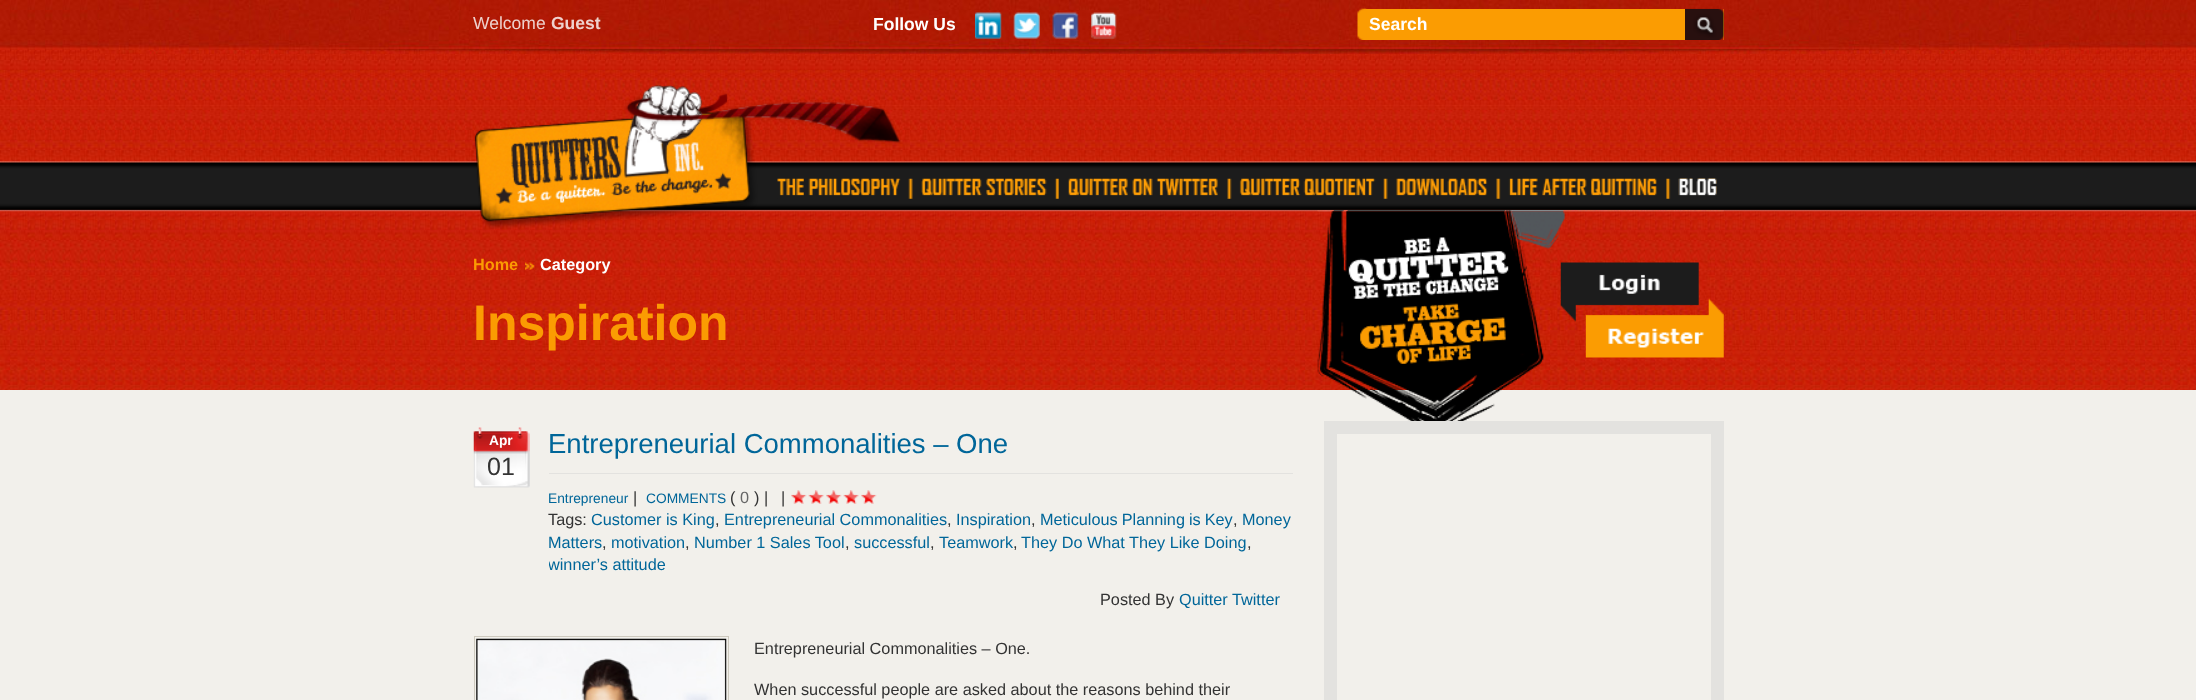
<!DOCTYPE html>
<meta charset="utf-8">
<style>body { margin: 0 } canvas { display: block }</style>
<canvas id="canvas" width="2196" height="700"></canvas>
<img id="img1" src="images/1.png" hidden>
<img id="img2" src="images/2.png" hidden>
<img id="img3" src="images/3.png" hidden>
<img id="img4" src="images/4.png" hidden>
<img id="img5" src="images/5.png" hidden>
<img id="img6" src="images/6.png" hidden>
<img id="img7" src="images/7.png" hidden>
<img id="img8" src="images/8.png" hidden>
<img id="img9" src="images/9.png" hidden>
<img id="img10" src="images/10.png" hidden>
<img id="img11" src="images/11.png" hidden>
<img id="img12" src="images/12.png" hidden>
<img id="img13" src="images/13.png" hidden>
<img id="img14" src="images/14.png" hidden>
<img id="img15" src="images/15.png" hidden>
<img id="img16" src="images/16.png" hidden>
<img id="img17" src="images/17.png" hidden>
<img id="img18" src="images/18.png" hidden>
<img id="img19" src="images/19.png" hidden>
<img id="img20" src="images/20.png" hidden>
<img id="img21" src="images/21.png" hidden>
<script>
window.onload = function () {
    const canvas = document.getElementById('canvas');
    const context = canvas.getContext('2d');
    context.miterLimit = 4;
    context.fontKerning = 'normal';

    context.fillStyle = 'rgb(242, 240, 235)';
    context.fillRect(0, 0, 2196, 700);
    context.drawImage(document.getElementById('img1'), 0, 0, 2196, 390);
    context.drawImage(document.getElementById('img2'), 99, 0, 2000, 54);
    context.drawImage(document.getElementById('img3'), 975, 12, 27, 27);
    context.drawImage(document.getElementById('img4'), 1013, 12, 27, 27);
    context.drawImage(document.getElementById('img5'), 1052, 12, 27, 27);
    context.drawImage(document.getElementById('img6'), 1091, 12, 26, 27);
    context.fillStyle = 'rgb(251, 156, 2)';
    context.fillRect(1366, 9, 358, 31);
    context.drawImage(document.getElementById('img7'), 1357, 8, 10, 32);
    context.drawImage(document.getElementById('img8'), 1685, 8, 39, 32);
    context.drawImage(document.getElementById('img9'), 0, 161, 2196, 51);
    context.drawImage(document.getElementById('img10'), 474, 85, 427, 144);
    context.drawImage(document.getElementById('img11'), 777, 178, 940, 21);
    context.drawImage(document.getElementById('img12'), 1317, 210, 407, 2);
    context.drawImage(document.getElementById('img13'), 1678, 178, 39, 18);
    context.drawImage(document.getElementById('img14'), 1317, 211, 407, 210);
    context.drawImage(document.getElementById('img15'), 525, 262, 10, 8);
    context.drawImage(document.getElementById('img16'), 473, 427, 57, 61);
    context.fillStyle = 'rgb(227, 226, 223)';
    context.fillRect(549, 473, 744, 1);
    context.drawImage(document.getElementById('img17'), 791, 490, 16, 14);
    context.drawImage(document.getElementById('img18'), 808, 490, 16, 14);
    context.drawImage(document.getElementById('img19'), 826, 490, 16, 14);
    context.drawImage(document.getElementById('img20'), 843, 490, 16, 14);
    context.drawImage(document.getElementById('img17'), 861, 490, 16, 14);
    context.strokeStyle = 'rgb(205, 201, 190)';
    context.strokeRect(474.5, 636.5, 254, 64);
    context.drawImage(document.getElementById('img21'), 476, 638, 251, 62);
    context.strokeStyle = 'rgb(227, 226, 223)';
    context.lineWidth = 13;
    context.strokeRect(1330.5, 427.5, 387, 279);
    context.font = '17.5px Liberation Sans';
    context.fillStyle = 'rgb(238, 209, 205)';
    context.fillText('Welcome', 473, 29);
    context.font = 'bold 17.5px Liberation Sans';
    context.fillText('Guest', 551, 29);
    context.fillStyle = 'rgb(255, 255, 255)';
    context.fillText('Follow Us', 873, 30);
    context.fillText('Search', 1369, 30);
    context.font = 'bold 16.25px Liberation Sans';
    context.fillStyle = 'rgb(251, 156, 2)';
    context.fillText('Home', 473, 270);
    context.fillStyle = 'rgb(255, 255, 255)';
    context.fillText('Category', 540, 270);
    context.font = 'bold 50px Liberation Sans';
    context.fillStyle = 'rgb(251, 156, 2)';
    context.fillText('Inspiration', 473, 340);
    context.font = 'bold 13.75px Liberation Sans';
    context.fillStyle = 'rgb(255, 255, 255)';
    context.fillText('Apr', 489, 445);
    context.font = '25px Liberation Sans';
    context.fillStyle = 'rgb(51, 51, 51)';
    context.fillText('01', 487, 475);
    context.font = '27.5px Liberation Sans';
    context.fillStyle = 'rgb(0, 102, 153)';
    context.fillText('Entrepreneurial Commonalities – One', 548, 453);
    context.font = '13.75px Liberation Sans';
    context.fillText('Entrepreneur', 548, 503);
    context.font = '16.25px Liberation Sans';
    context.fillStyle = 'rgb(51, 51, 51)';
    context.fillText('|', 633, 503);
    context.font = '13.75px Liberation Sans';
    context.fillStyle = 'rgb(0, 102, 153)';
    context.fillText('COMMENTS', 646, 503);
    context.font = '16.25px Liberation Sans';
    context.fillStyle = 'rgb(51, 51, 51)';
    context.fillText('(', 730, 503);
    context.fillStyle = 'rgb(102, 102, 102)';
    context.fillText('0', 740, 503);
    context.fillStyle = 'rgb(51, 51, 51)';
    context.fillText(') |', 754, 503);
    context.fillText('|', 781, 503);
    context.fillText('Tags:', 548, 525);
    context.fillStyle = 'rgb(0, 102, 153)';
    context.fillText('Customer is King', 591, 525);
    context.fillStyle = 'rgb(51, 51, 51)';
    context.fillText(',', 715, 525);
    context.fillStyle = 'rgb(0, 102, 153)';
    context.fillText('Entrepreneurial Commonalities', 724, 525);
    context.fillStyle = 'rgb(51, 51, 51)';
    context.fillText(',', 947, 525);
    context.fillStyle = 'rgb(0, 102, 153)';
    context.fillText('Inspiration', 956, 525);
    context.fillStyle = 'rgb(51, 51, 51)';
    context.fillText(',', 1031, 525);
    context.wordSpacing = '-0.5px';
    context.fillStyle = 'rgb(0, 102, 153)';
    context.fillText('Meticulous Planning is Key', 1040, 525);
    context.wordSpacing = '0px';
    context.fillStyle = 'rgb(51, 51, 51)';
    context.fillText(',', 1233, 525);
    context.fillStyle = 'rgb(0, 102, 153)';
    context.fillText('Money', 1242, 525);
    context.fillText('Matters', 548, 548);
    context.fillStyle = 'rgb(51, 51, 51)';
    context.fillText(',', 602, 548);
    context.fillStyle = 'rgb(0, 102, 153)';
    context.fillText('motivation', 611, 548);
    context.fillStyle = 'rgb(51, 51, 51)';
    context.fillText(',', 685, 548);
    context.fillStyle = 'rgb(0, 102, 153)';
    context.fillText('Number 1 Sales Tool', 694, 548);
    context.fillStyle = 'rgb(51, 51, 51)';
    context.fillText(',', 845, 548);
    context.fillStyle = 'rgb(0, 102, 153)';
    context.fillText('successful', 854, 548);
    context.fillStyle = 'rgb(51, 51, 51)';
    context.fillText(',', 930, 548);
    context.fillStyle = 'rgb(0, 102, 153)';
    context.fillText('Teamwork', 939, 548);
    context.fillStyle = 'rgb(51, 51, 51)';
    context.fillText(',', 1013, 548);
    context.fillStyle = 'rgb(0, 102, 153)';
    context.fillText('They Do What They Like Doing', 1021, 548);
    context.fillStyle = 'rgb(51, 51, 51)';
    context.fillText(',', 1247, 548);
    context.save();
    context.beginPath();
    context.rect(549, 428, 744, 183);
    context.clip();
    context.fillStyle = 'rgb(0, 102, 153)';
    context.fillText('winner’s attitude', 548, 570);
    context.restore();
    context.fillText('Posted By', 1100, 605);
    context.fillStyle = 'rgb(0, 102, 153)';
    context.fillText('Quitter Twitter', 1179, 605);
    context.fillStyle = 'rgb(51, 51, 51)';
    context.fillText('Entrepreneurial Commonalities – One.', 754, 654);
    context.fillText('When successful people are asked about the reasons behind their', 754, 695);
};
</script>
